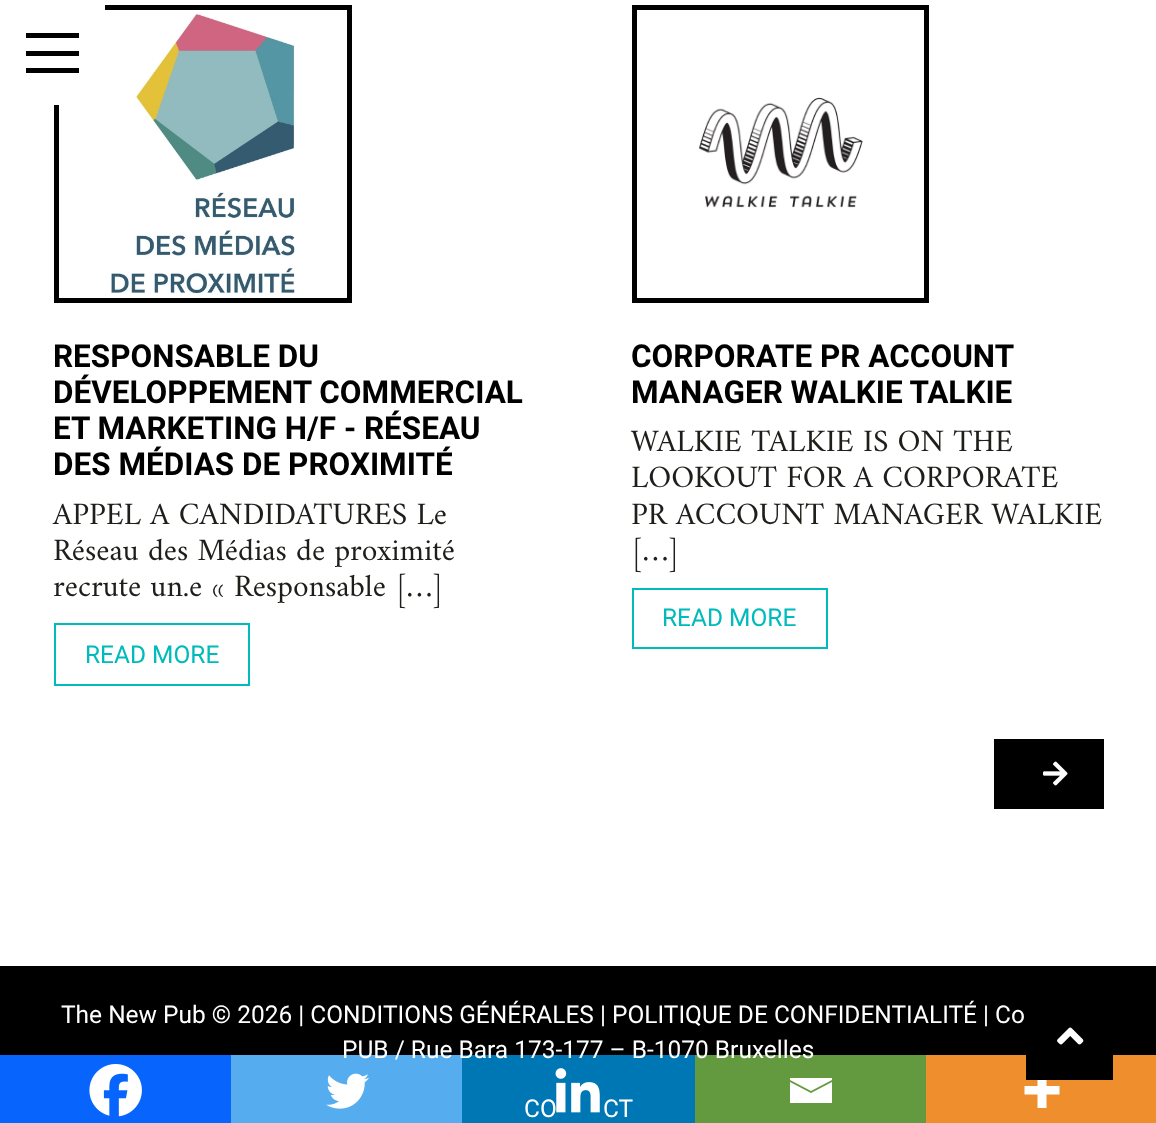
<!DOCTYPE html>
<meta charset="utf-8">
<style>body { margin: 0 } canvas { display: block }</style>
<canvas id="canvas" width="1156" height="1123"></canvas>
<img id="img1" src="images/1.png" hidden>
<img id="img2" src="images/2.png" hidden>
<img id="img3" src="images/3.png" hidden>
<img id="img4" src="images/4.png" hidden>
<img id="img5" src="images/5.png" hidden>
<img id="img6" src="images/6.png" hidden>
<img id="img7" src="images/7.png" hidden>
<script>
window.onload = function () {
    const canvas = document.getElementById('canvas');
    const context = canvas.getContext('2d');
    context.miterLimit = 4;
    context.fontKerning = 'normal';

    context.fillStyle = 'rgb(255, 255, 255)';
    context.fillRect(0, 0, 1156, 1123);
    context.drawImage(document.getElementById('img1'), 111, 14, 184, 280);
    context.strokeStyle = 'rgb(0, 0, 0)';
    context.lineWidth = 5;
    context.strokeRect(56.5, 7.5, 293, 293);
    context.fillRect(54, 5, 51, 100);
    context.fillStyle = 'rgb(0, 0, 0)';
    context.fillRect(26, 33, 53, 5);
    context.fillRect(26, 51, 53, 5);
    context.fillRect(26, 68, 53, 5);
    context.strokeStyle = 'rgb(0, 187, 187)';
    context.lineWidth = 2;
    context.strokeRect(55, 624, 194, 61);
    context.drawImage(document.getElementById('img2'), 699, 97, 164, 111);
    context.strokeStyle = 'rgb(0, 0, 0)';
    context.lineWidth = 5;
    context.strokeRect(634.5, 7.5, 292, 293);
    context.strokeStyle = 'rgb(0, 187, 187)';
    context.lineWidth = 2;
    context.strokeRect(633, 589, 194, 59);
    context.strokeStyle = 'rgb(0, 0, 0)';
    context.strokeRect(995, 740, 108, 68);
    context.fillRect(996, 741, 106, 66);
    context.drawImage(document.getElementById('img3'), 1043, 761, 25, 25);
    context.fillStyle = 'rgb(7, 101, 254)';
    context.fillRect(0, 1055, 231, 68);
    context.drawImage(document.getElementById('img4'), 89, 1064, 53, 53);
    context.fillStyle = 'rgb(85, 172, 238)';
    context.fillRect(231, 1055, 231, 68);
    context.drawImage(document.getElementById('img5'), 326, 1073, 43, 36);
    context.fillStyle = 'rgb(0, 119, 181)';
    context.fillRect(462, 1055, 233, 68);
    context.drawImage(document.getElementById('img6'), 555, 1068, 45, 45);
    context.fillStyle = 'rgb(100, 154, 63)';
    context.fillRect(695, 1055, 231, 68);
    context.fillStyle = 'rgb(255, 255, 255)';
    context.beginPath();
    context.moveTo(788, 1078);
    context.lineTo(832, 1078);
    context.lineTo(832, 1080);
    context.lineTo(811, 1091);
    context.lineTo(790, 1080);
    context.lineTo(790, 1078);
    context.moveTo(790, 1082);
    context.lineTo(811, 1093);
    context.lineTo(832, 1082);
    context.lineTo(832, 1103);
    context.lineTo(790, 1103);
    context.lineTo(790, 1082);
    context.fill();
    context.fillStyle = 'rgb(238, 142, 45)';
    context.fillRect(926, 1055, 230, 68);
    context.fillStyle = 'rgb(255, 255, 255)';
    context.beginPath();
    context.moveTo(1046.5, 1086);
    context.lineTo(1046.5, 1073);
    context.lineTo(1037.5, 1073);
    context.lineTo(1037.5, 1086);
    context.lineTo(1024.5, 1086);
    context.lineTo(1024.5, 1094.5);
    context.lineTo(1037.5, 1094.5);
    context.lineTo(1037.5, 1108);
    context.lineTo(1046.5, 1108);
    context.lineTo(1046.5, 1094.5);
    context.lineTo(1059.5, 1094.5);
    context.lineTo(1059.5, 1086);
    context.closePath();
    context.fill('evenodd');
    context.fillStyle = 'rgb(0, 0, 0)';
    context.fillRect(0, 966, 1156, 89);
    context.fillRect(1026, 1055, 87, 25);
    context.drawImage(document.getElementById('img7'), 1057, 1027, 27, 18);
    context.font = 'bold 31.5px Roboto';
    context.fillText('RESPONSABLE DU', 53, 367);
    context.fillText('DÉVELOPPEMENT COMMERCIAL', 53, 403);
    context.fillText('ET MARKETING H/F - RÉSEAU', 53, 439);
    context.fillText('DES MÉDIAS DE PROXIMITÉ', 53, 475);
    context.font = '31.5px Amiri';
    context.fillStyle = 'rgb(30, 30, 27)';
    context.fillText('APPEL A CANDIDATURES Le', 53, 524);
    context.fillText('Réseau des Médias de proximité', 53, 560);
    context.fillText('recrute un.e « Responsable […]', 53, 596);
    context.font = '24.5px Roboto';
    context.fillStyle = 'rgb(0, 187, 187)';
    context.fillText('READ MORE', 85, 663);
    context.font = 'bold 31.5px Roboto';
    context.fillStyle = 'rgb(0, 0, 0)';
    context.fillText('CORPORATE PR ACCOUNT', 631, 367);
    context.fillText('MANAGER WALKIE TALKIE', 631, 403);
    context.font = '31.5px Amiri';
    context.fillStyle = 'rgb(30, 30, 27)';
    context.fillText('WALKIE TALKIE IS ON THE', 631, 451);
    context.fillText('LOOKOUT FOR A CORPORATE', 631, 487);
    context.fillText('PR ACCOUNT MANAGER WALKIE', 631, 524);
    context.fillText('[…]', 631, 560);
    context.font = '24.5px Roboto';
    context.fillStyle = 'rgb(0, 187, 187)';
    context.fillText('READ MORE', 662, 626);
    context.fillStyle = 'rgb(255, 255, 255)';
    context.fillText('The New Pub © 2026 | CONDITIONS GÉNÉRALES', 61, 1023);
    context.fillText('| POLITIQUE DE CONFIDENTIALITÉ', 600, 1023);
    context.fillText('| Co', 983, 1023);
    context.fillText('PUB / Rue Bara 173-177 – B-1070 Bruxelles', 342, 1058);
    context.fillText('CO', 524, 1117);
    context.fillText('CT', 603, 1117);
};
</script>
